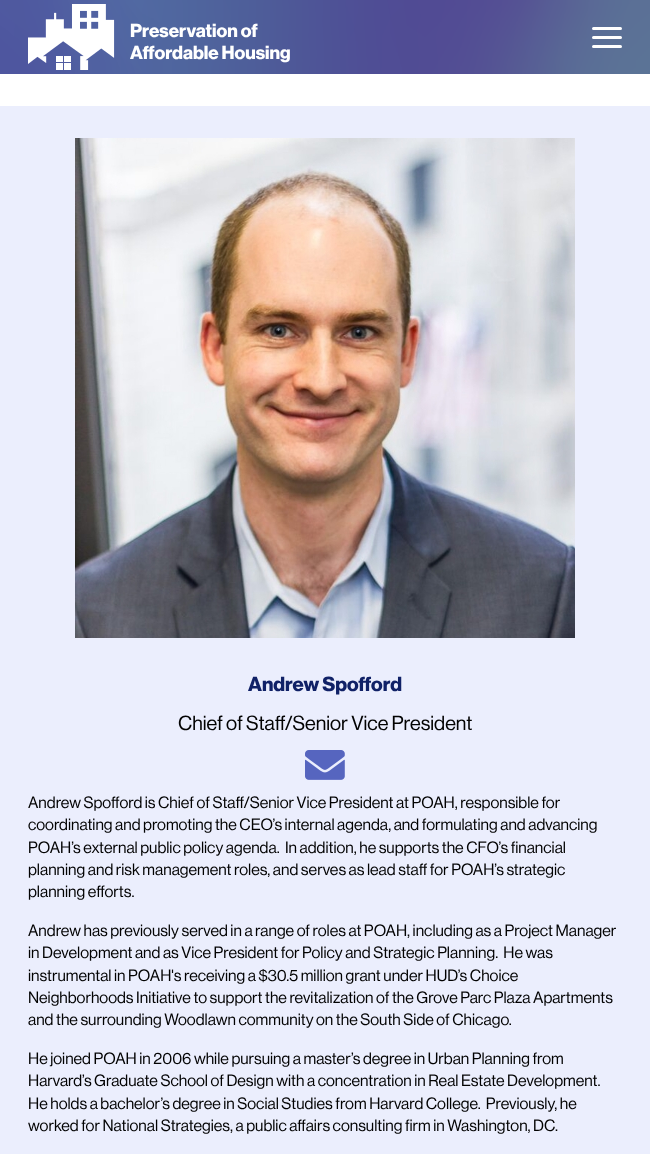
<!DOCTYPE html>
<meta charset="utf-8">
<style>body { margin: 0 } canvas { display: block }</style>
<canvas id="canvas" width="650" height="1154"></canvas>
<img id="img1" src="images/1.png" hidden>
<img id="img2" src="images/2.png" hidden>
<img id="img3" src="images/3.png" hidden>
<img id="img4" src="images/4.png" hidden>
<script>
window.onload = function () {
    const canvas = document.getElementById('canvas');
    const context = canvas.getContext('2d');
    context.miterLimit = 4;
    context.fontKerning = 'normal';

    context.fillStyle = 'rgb(255, 255, 255)';
    context.fillRect(0, 0, 650, 1154);
    context.fillStyle = 'rgb(38, 40, 100)';
    context.fillRect(0, 0, 650, 74);
    context.drawImage(document.getElementById('img1'), 0, 0, 650, 74);
    context.drawImage(document.getElementById('img2'), 28, 4, 87, 66);
    context.beginPath();
    context.moveTo(593.5, 37.5);
    context.lineTo(620.5, 37.5);
    context.moveTo(593.5, 28.5);
    context.lineTo(620.5, 28.5);
    context.moveTo(593.5, 46.5);
    context.lineTo(620.5, 46.5);
    context.strokeStyle = 'rgb(255, 255, 255)';
    context.lineWidth = 3;
    context.lineCap = 'round';
    context.lineJoin = 'round';
    context.stroke();
    context.fillStyle = 'rgb(235, 238, 253)';
    context.fillRect(0, 106, 650, 1048);
    context.drawImage(document.getElementById('img3'), 75, 138, 500, 500);
    context.drawImage(document.getElementById('img4'), 305, 750, 40, 30);
    context.font = 'bold 18.5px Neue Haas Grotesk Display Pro';
    context.fillStyle = 'rgb(255, 255, 255)';
    context.fillText('Preservation of', 130, 37);
    context.fillText('Affordable Housing', 130, 59);
    context.font = 'bold 20px Neue Haas Grotesk Display Pro';
    context.fillStyle = 'rgb(16, 33, 103)';
    context.fillText('Andrew Spofford', 248, 691);
    context.font = '20px Neue Haas Grotesk Display Pro';
    context.fillStyle = 'rgb(2, 2, 2)';
    context.fillText('Chief of Staff/Senior Vice President', 178, 730);
    context.font = '16px Neue Haas Grotesk Display Pro';
    context.fillText('Andrew Spofford is Chief of Staff/Senior Vice President at POAH, responsible for', 28, 808);
    context.fillText('coordinating and promoting the CEO’s internal agenda, and formulating and advancing', 28, 830);
    context.fillText('POAH’s external public policy agenda.  In addition, he supports the CFO’s financial', 28, 853);
    context.fillText('planning and risk management roles, and serves as lead staff for POAH’s strategic', 28, 875);
    context.fillText('planning efforts.', 28, 897);
    context.fillText('Andrew has previously served in a range of roles at POAH, including as a Project Manager', 28, 936);
    context.fillText('in Development and as Vice President for Policy and Strategic Planning.  He was', 28, 958);
    context.fillText('instrumental in POAH\'s receiving a $30.5 million grant under HUD’s Choice', 28, 981);
    context.fillText('Neighborhoods Initiative to support the revitalization of the Grove Parc Plaza Apartments', 28, 1003);
    context.fillText('and the surrounding Woodlawn community on the South Side of Chicago.', 28, 1025);
    context.fillText('He joined POAH in 2006 while pursuing a master’s degree in Urban Planning from', 28, 1064);
    context.fillText('Harvard’s Graduate School of Design with a concentration in Real Estate Development.', 28, 1086);
    context.fillText('He holds a bachelor’s degree in Social Studies from Harvard College.  Previously, he', 28, 1109);
    context.fillText('worked for National Strategies, a public affairs consulting firm in Washington, DC.', 28, 1131);
};
</script>
